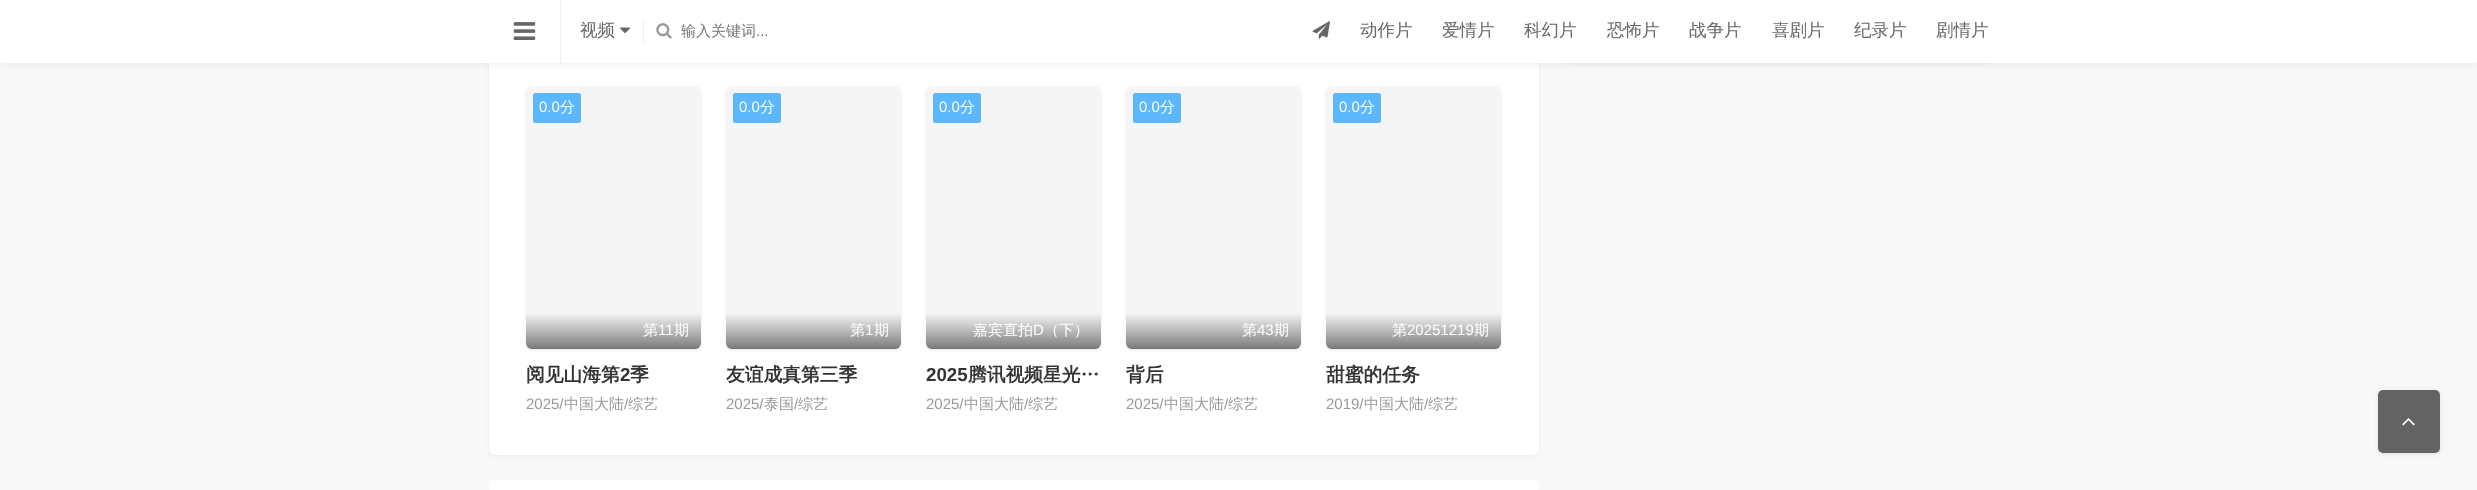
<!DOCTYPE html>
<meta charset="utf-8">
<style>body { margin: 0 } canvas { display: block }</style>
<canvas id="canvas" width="2477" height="490"></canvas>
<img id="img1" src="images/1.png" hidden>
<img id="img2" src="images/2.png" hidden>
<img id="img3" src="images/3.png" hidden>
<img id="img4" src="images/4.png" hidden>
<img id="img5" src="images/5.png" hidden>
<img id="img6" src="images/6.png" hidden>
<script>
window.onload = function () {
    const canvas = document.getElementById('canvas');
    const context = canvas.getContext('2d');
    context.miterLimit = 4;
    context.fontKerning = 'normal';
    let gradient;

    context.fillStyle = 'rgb(248, 248, 248)';
    context.fillRect(0, 0, 2477, 490);
    context.fillStyle = 'rgba(0, 0, 0, 0.05)';
    context.filter = 'blur(2px)';
    context.beginPath();
    context.roundRect(489, -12, 1050, 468, 6);
    context.fill();
    context.filter = 'none';
    context.fillStyle = 'rgb(255, 255, 255)';
    context.beginPath();
    context.roundRect(489, -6, 1050, 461, 6);
    context.fill();
    context.fillStyle = 'rgba(0, 0, 0, 0.05)';
    context.filter = 'blur(3px)';
    context.beginPath();
    context.rect(0, -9, 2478, 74);
    context.fill();
    context.filter = 'none';
    context.filter = 'blur(2px)';
    context.beginPath();
    context.roundRect(1564, -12, 425, 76, 6);
    context.fill();
    context.filter = 'none';
    context.fillStyle = 'rgb(255, 255, 255)';
    context.fillRect(0, 0, 2477, 63);
    context.fillStyle = 'rgb(238, 238, 238)';
    context.fillRect(560, 0, 1, 63);
    context.drawImage(document.getElementById('img1'), 513, 22, 23, 18);
    context.fillRect(643, 19, 1, 25);
    context.drawImage(document.getElementById('img2'), 620, 27, 10, 6);
    context.drawImage(document.getElementById('img3'), 656, 23, 16, 16);
    context.drawImage(document.getElementById('img4'), 1312, 21, 18, 18);
    context.fillStyle = 'rgba(0, 0, 0, 0.1)';
    context.filter = 'blur(1px)';
    context.beginPath();
    context.roundRect(526, 88, 175, 262, 6);
    context.fill();
    context.filter = 'none';
    context.drawImage(document.getElementById('img5'), 526, 86, 175, 262);
    context.fillStyle = 'rgb(91, 183, 254)';
    context.beginPath();
    context.roundRect(533, 93, 48, 30, 2.5);
    context.fill();
    gradient = context.createLinearGradient(614, 313, 614, 349);
    gradient.addColorStop(0, 'rgba(0, 0, 0, 0)');
    gradient.addColorStop(1, 'rgba(0, 0, 0, 0.5)');
    context.fillStyle = gradient;
    context.beginPath();
    context.roundRect(526, 313, 175, 36, [0, 0, 6, 6]);
    context.fill();
    context.fillStyle = 'rgba(0, 0, 0, 0.1)';
    context.filter = 'blur(1px)';
    context.beginPath();
    context.roundRect(726, 88, 175, 262, 6);
    context.fill();
    context.filter = 'none';
    context.drawImage(document.getElementById('img5'), 726, 86, 175, 262);
    context.fillStyle = 'rgb(91, 183, 254)';
    context.beginPath();
    context.roundRect(733, 93, 48, 30, 2.5);
    context.fill();
    gradient = context.createLinearGradient(814, 313, 814, 349);
    gradient.addColorStop(0, 'rgba(0, 0, 0, 0)');
    gradient.addColorStop(1, 'rgba(0, 0, 0, 0.5)');
    context.fillStyle = gradient;
    context.beginPath();
    context.roundRect(726, 313, 175, 36, [0, 0, 6, 6]);
    context.fill();
    context.fillStyle = 'rgba(0, 0, 0, 0.1)';
    context.filter = 'blur(1px)';
    context.beginPath();
    context.roundRect(926, 88, 175, 262, 6);
    context.fill();
    context.filter = 'none';
    context.drawImage(document.getElementById('img5'), 926, 86, 175, 262);
    context.fillStyle = 'rgb(91, 183, 254)';
    context.beginPath();
    context.roundRect(933, 93, 48, 30, 2.5);
    context.fill();
    gradient = context.createLinearGradient(1014, 313, 1014, 349);
    gradient.addColorStop(0, 'rgba(0, 0, 0, 0)');
    gradient.addColorStop(1, 'rgba(0, 0, 0, 0.5)');
    context.fillStyle = gradient;
    context.beginPath();
    context.roundRect(926, 313, 175, 36, [0, 0, 6, 6]);
    context.fill();
    context.fillStyle = 'rgba(0, 0, 0, 0.1)';
    context.filter = 'blur(1px)';
    context.beginPath();
    context.roundRect(1126, 88, 175, 262, 6);
    context.fill();
    context.filter = 'none';
    context.drawImage(document.getElementById('img5'), 1126, 86, 175, 262);
    context.fillStyle = 'rgb(91, 183, 254)';
    context.beginPath();
    context.roundRect(1133, 93, 48, 30, 2.5);
    context.fill();
    gradient = context.createLinearGradient(1214, 313, 1214, 349);
    gradient.addColorStop(0, 'rgba(0, 0, 0, 0)');
    gradient.addColorStop(1, 'rgba(0, 0, 0, 0.5)');
    context.fillStyle = gradient;
    context.beginPath();
    context.roundRect(1126, 313, 175, 36, [0, 0, 6, 6]);
    context.fill();
    context.fillStyle = 'rgba(0, 0, 0, 0.1)';
    context.filter = 'blur(1px)';
    context.beginPath();
    context.roundRect(1326, 88, 175, 262, 6);
    context.fill();
    context.filter = 'none';
    context.drawImage(document.getElementById('img5'), 1326, 86, 175, 262);
    context.fillStyle = 'rgb(91, 183, 254)';
    context.beginPath();
    context.roundRect(1333, 93, 48, 30, 2.5);
    context.fill();
    gradient = context.createLinearGradient(1414, 313, 1414, 349);
    gradient.addColorStop(0, 'rgba(0, 0, 0, 0)');
    gradient.addColorStop(1, 'rgba(0, 0, 0, 0.5)');
    context.fillStyle = gradient;
    context.beginPath();
    context.roundRect(1326, 313, 175, 36, [0, 0, 6, 6]);
    context.fill();
    context.fillStyle = 'rgb(255, 255, 255)';
    context.beginPath();
    context.roundRect(489, 480, 1050, 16, 6);
    context.fill();
    context.save();
    context.beginPath();
    context.moveTo(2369, 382);
    context.lineTo(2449, 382);
    context.lineTo(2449, 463);
    context.lineTo(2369, 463);
    context.closePath();
    context.moveTo(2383, 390);
    context.lineTo(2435, 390);
    context.bezierCurveTo(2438, 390, 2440, 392, 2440, 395);
    context.lineTo(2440, 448);
    context.bezierCurveTo(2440, 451, 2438, 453, 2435, 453);
    context.lineTo(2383, 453);
    context.bezierCurveTo(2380, 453, 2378, 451, 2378, 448);
    context.lineTo(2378, 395);
    context.bezierCurveTo(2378, 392, 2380, 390, 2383, 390);
    context.closePath();
    context.clip('evenodd');
    context.fillStyle = 'rgba(0, 0, 0, 0.1)';
    context.filter = 'blur(2.5px)';
    context.beginPath();
    context.roundRect(2378, 391, 62, 63, 5);
    context.fill();
    context.filter = 'none';
    context.restore();
    context.fillStyle = 'rgba(0, 0, 0, 0.6)';
    context.beginPath();
    context.roundRect(2378, 390, 62, 63, 5);
    context.fill();
    context.drawImage(document.getElementById('img6'), 2402, 418, 13, 8);
    context.font = '500 17.5px WenQuanYi Zen Hei';
    context.fillStyle = 'rgb(102, 102, 102)';
    context.fillText('视频', 580, 36);
    context.font = '500 15px WenQuanYi Zen Hei';
    context.fillStyle = 'rgb(117, 117, 117)';
    context.fillText('输入关键词', 681, 36);
    context.font = '15px Liberation Sans';
    context.fillText('...', 756, 36);
    context.font = '500 17.5px WenQuanYi Zen Hei';
    context.fillStyle = 'rgb(102, 102, 102)';
    context.fillText('动作片', 1360, 36);
    context.fillText('爱情片', 1442, 36);
    context.fillText('科幻片', 1524, 36);
    context.fillText('恐怖片', 1607, 36);
    context.fillText('战争片', 1689, 36);
    context.fillText('喜剧片', 1772, 36);
    context.fillText('纪录片', 1854, 36);
    context.fillText('剧情片', 1936, 36);
    context.font = '15px Liberation Sans';
    context.fillStyle = 'rgb(255, 255, 255)';
    context.fillText('0.0', 539, 112);
    context.font = '500 15px WenQuanYi Zen Hei';
    context.fillText('分', 560, 112);
    context.fillText('第', 643, 335);
    context.font = '15px Liberation Sans';
    context.fillText('11', 658, 335);
    context.font = '500 15px WenQuanYi Zen Hei';
    context.fillText('期', 674, 335);
    context.font = 'bold 18.75px WenQuanYi Zen Hei';
    context.fillStyle = 'rgb(51, 51, 51)';
    context.fillText('阅见山海第', 526, 381);
    context.font = 'bold 18.75px Liberation Sans';
    context.fillText('2', 620, 381);
    context.font = 'bold 18.75px WenQuanYi Zen Hei';
    context.fillText('季', 630, 381);
    context.font = '15px Liberation Sans';
    context.fillStyle = 'rgb(153, 153, 153)';
    context.fillText('2025/', 526, 409);
    context.font = '500 15px WenQuanYi Zen Hei';
    context.fillText('中国大陆', 564, 409);
    context.font = '15px Liberation Sans';
    context.fillText('/', 624, 409);
    context.font = '500 15px WenQuanYi Zen Hei';
    context.fillText('综艺', 628, 409);
    context.font = '15px Liberation Sans';
    context.fillStyle = 'rgb(255, 255, 255)';
    context.fillText('0.0', 739, 112);
    context.font = '500 15px WenQuanYi Zen Hei';
    context.fillText('分', 760, 112);
    context.fillText('第', 850, 335);
    context.font = '15px Liberation Sans';
    context.fillText('1', 865, 335);
    context.font = '500 15px WenQuanYi Zen Hei';
    context.fillText('期', 874, 335);
    context.font = 'bold 18.75px WenQuanYi Zen Hei';
    context.fillStyle = 'rgb(51, 51, 51)';
    context.fillText('友谊成真第三季', 726, 381);
    context.font = '15px Liberation Sans';
    context.fillStyle = 'rgb(153, 153, 153)';
    context.fillText('2025/', 726, 409);
    context.font = '500 15px WenQuanYi Zen Hei';
    context.fillText('泰国', 764, 409);
    context.font = '15px Liberation Sans';
    context.fillText('/', 794, 409);
    context.font = '500 15px WenQuanYi Zen Hei';
    context.fillText('综艺', 798, 409);
    context.font = '15px Liberation Sans';
    context.fillStyle = 'rgb(255, 255, 255)';
    context.fillText('0.0', 939, 112);
    context.font = '500 15px WenQuanYi Zen Hei';
    context.fillText('分', 960, 112);
    context.fillText('嘉宾直拍', 973, 335);
    context.font = '15px Liberation Sans';
    context.fillText('D', 1033, 335);
    context.font = '500 15px WenQuanYi Zen Hei';
    context.fillText('（下）', 1044, 335);
    context.font = 'bold 18.75px Liberation Sans';
    context.fillStyle = 'rgb(51, 51, 51)';
    context.fillText('2025', 926, 381);
    context.font = 'bold 18.75px WenQuanYi Zen Hei';
    context.fillText('腾讯视频星光…', 968, 381);
    context.font = '15px Liberation Sans';
    context.fillStyle = 'rgb(153, 153, 153)';
    context.fillText('2025/', 926, 409);
    context.font = '500 15px WenQuanYi Zen Hei';
    context.fillText('中国大陆', 964, 409);
    context.font = '15px Liberation Sans';
    context.fillText('/', 1024, 409);
    context.font = '500 15px WenQuanYi Zen Hei';
    context.fillText('综艺', 1028, 409);
    context.font = '15px Liberation Sans';
    context.fillStyle = 'rgb(255, 255, 255)';
    context.fillText('0.0', 1139, 112);
    context.font = '500 15px WenQuanYi Zen Hei';
    context.fillText('分', 1160, 112);
    context.fillText('第', 1242, 335);
    context.font = '15px Liberation Sans';
    context.fillText('43', 1257, 335);
    context.font = '500 15px WenQuanYi Zen Hei';
    context.fillText('期', 1274, 335);
    context.font = 'bold 18.75px WenQuanYi Zen Hei';
    context.fillStyle = 'rgb(51, 51, 51)';
    context.fillText('背后', 1126, 381);
    context.font = '15px Liberation Sans';
    context.fillStyle = 'rgb(153, 153, 153)';
    context.fillText('2025/', 1126, 409);
    context.font = '500 15px WenQuanYi Zen Hei';
    context.fillText('中国大陆', 1164, 409);
    context.font = '15px Liberation Sans';
    context.fillText('/', 1224, 409);
    context.font = '500 15px WenQuanYi Zen Hei';
    context.fillText('综艺', 1228, 409);
    context.font = '15px Liberation Sans';
    context.fillStyle = 'rgb(255, 255, 255)';
    context.fillText('0.0', 1339, 112);
    context.font = '500 15px WenQuanYi Zen Hei';
    context.fillText('分', 1360, 112);
    context.fillText('第', 1392, 335);
    context.font = '15px Liberation Sans';
    context.fillText('20251219', 1407, 335);
    context.font = '500 15px WenQuanYi Zen Hei';
    context.fillText('期', 1474, 335);
    context.font = 'bold 18.75px WenQuanYi Zen Hei';
    context.fillStyle = 'rgb(51, 51, 51)';
    context.fillText('甜蜜的任务', 1326, 381);
    context.font = '15px Liberation Sans';
    context.fillStyle = 'rgb(153, 153, 153)';
    context.fillText('2019/', 1326, 409);
    context.font = '500 15px WenQuanYi Zen Hei';
    context.fillText('中国大陆', 1364, 409);
    context.font = '15px Liberation Sans';
    context.fillText('/', 1424, 409);
    context.font = '500 15px WenQuanYi Zen Hei';
    context.fillText('综艺', 1428, 409);
};
</script>
